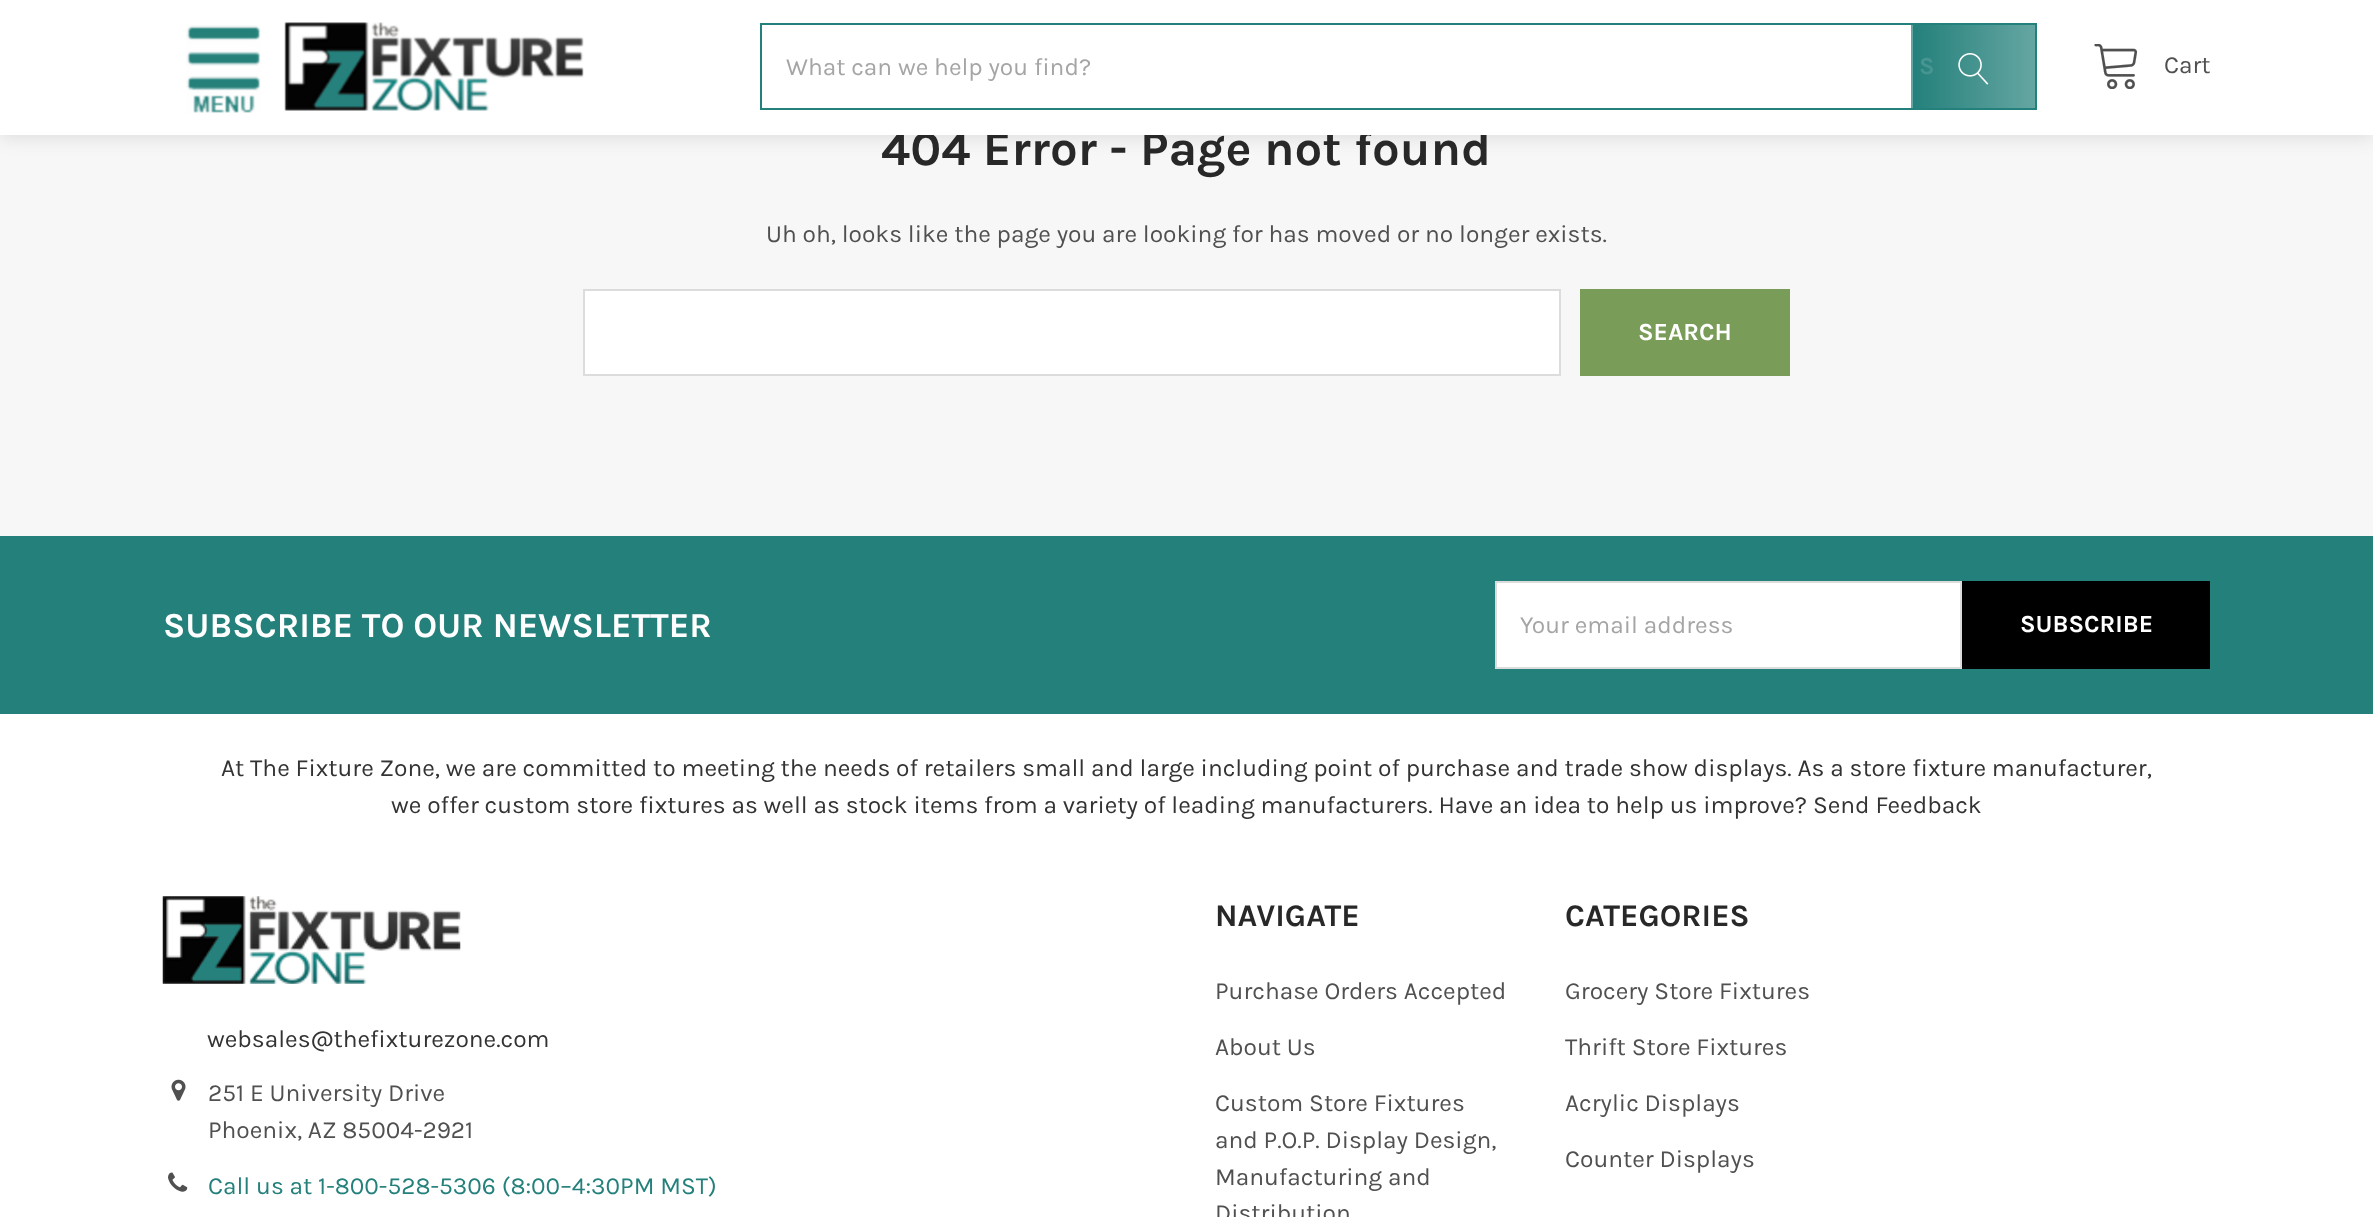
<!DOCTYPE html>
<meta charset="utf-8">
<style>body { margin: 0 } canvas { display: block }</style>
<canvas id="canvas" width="2373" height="1217"></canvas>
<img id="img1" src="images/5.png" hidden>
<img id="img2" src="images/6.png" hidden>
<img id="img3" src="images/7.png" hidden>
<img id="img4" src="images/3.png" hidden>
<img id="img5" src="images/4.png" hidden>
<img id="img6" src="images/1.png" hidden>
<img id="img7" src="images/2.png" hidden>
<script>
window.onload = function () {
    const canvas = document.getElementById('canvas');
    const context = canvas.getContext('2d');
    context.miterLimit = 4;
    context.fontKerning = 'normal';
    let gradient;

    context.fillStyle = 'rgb(247, 247, 247)';
    context.fillRect(0, 0, 2373, 1217);
    context.fillStyle = 'rgba(0, 0, 0, 0.1)';
    context.filter = 'blur(9px)';
    context.beginPath();
    context.rect(0, 4, 2373, 134);
    context.fill();
    context.filter = 'none';
    context.fillStyle = 'rgb(255, 255, 255)';
    context.beginPath();
    context.rect(584, 290, 976, 85);
    context.fill();
    context.strokeStyle = 'rgb(220, 220, 220)';
    context.lineWidth = 2;
    context.stroke();
    context.fillStyle = 'rgb(122, 156, 89)';
    context.fillRect(1580, 289, 210, 87);
    context.fillStyle = 'rgb(255, 255, 255)';
    context.fillRect(0, 714, 2373, 503);
    context.fillStyle = 'rgb(36, 128, 123)';
    context.fillRect(0, 536, 2373, 178);
    context.fillStyle = 'rgb(255, 255, 255)';
    context.beginPath();
    context.rect(1496, 582, 465, 86);
    context.fill();
    context.stroke();
    context.fillStyle = 'rgb(0, 0, 0)';
    context.fillRect(1962, 581, 248, 88);
    context.drawImage(document.getElementById('img1'), 162, 896, 299, 88);
    context.drawImage(document.getElementById('img2'), 171, 1079, 15, 22);
    context.drawImage(document.getElementById('img3'), 168, 1172, 20, 20);
    context.font = 'bold 49px Karla';
    context.fillStyle = 'rgb(40, 40, 40)';
    context.fillText('404 Error - Page not found', 881, 165);
    context.fillStyle = 'rgb(255, 255, 255)';
    context.fillRect(0, 0, 2373, 135);
    context.strokeStyle = 'rgb(36, 128, 123)';
    context.strokeRect(761, 24, 1275, 85);
    gradient = context.createLinearGradient(1913, 67, 2035, 67);
    gradient.addColorStop(0, 'rgb(36, 128, 123)');
    gradient.addColorStop(1, 'rgba(36, 128, 123, 0.7)');
    context.fillStyle = gradient;
    context.fillRect(1913, 25, 122, 83);
    context.font = 'bold 24.5px Karla';
    context.fillStyle = 'rgb(71, 148, 144)';
    context.fillText('S', 1919, 74);
    context.drawImage(document.getElementById('img4'), 1958, 53, 31, 32);
    gradient = context.createLinearGradient(1790, 67, 1913, 67);
    gradient.addColorStop(0, 'rgb(36, 128, 123)');
    gradient.addColorStop(1, 'rgba(36, 128, 123, 0.7)');
    context.fillStyle = gradient;
    context.fillRect(1911, 23, 2, 87);
    context.font = '24.5px Karla';
    context.fillStyle = 'rgb(165, 165, 165)';
    context.fillText('What can we help you find?', 786, 75);
    context.drawImage(document.getElementById('img5'), 2094, 44, 44, 45);
    context.fillStyle = 'rgb(80, 80, 80)';
    context.fillText('Cart', 2164, 73);
    context.drawImage(document.getElementById('img6'), 186, 25, 75, 88);
    context.drawImage(document.getElementById('img7'), 284, 22, 300, 89);
    context.fillText('Uh oh, looks like the page you are looking for has moved or no longer exists.', 766, 242);
    context.font = 'bold 24.5px Karla';
    context.fillStyle = 'rgb(255, 255, 255)';
    context.fillText('SEARCH', 1638, 340);
    context.font = 'bold 35px Karla';
    context.fillText('SUBSCRIBE TO OUR NEWSLETTER', 163, 637);
    context.font = '24.5px Karla';
    context.fillStyle = 'rgb(165, 165, 165)';
    context.fillText('Your email address', 1520, 633);
    context.font = 'bold 24.5px Karla';
    context.fillStyle = 'rgb(255, 255, 255)';
    context.fillText('SUBSCRIBE', 2020, 632);
    context.font = '24.5px Karla';
    context.fillStyle = 'rgb(51, 51, 51)';
    context.fillText('At The Fixture Zone, we are committed to meeting the needs of retailers small and large including point of purchase and trade show displays. As a store fixture manufacturer,', 221, 776);
    context.fillText('we offer custom store fixtures as well as stock items from a variety of leading manufacturers. Have an idea to help us improve? Send Feedback', 391, 813);
    context.fillText('websales@thefixturezone.com', 207, 1047);
    context.fillStyle = 'rgb(80, 80, 80)';
    context.fillText('251 E University Drive', 208, 1101);
    context.fillText('Phoenix, AZ 85004-2921', 208, 1138);
    context.fillStyle = 'rgb(36, 128, 123)';
    context.fillText('Call us at 1-800-528-5306 (8:00–4:30PM MST)', 208, 1194);
    context.font = 'bold 31.5px Karla';
    context.fillStyle = 'rgb(40, 40, 40)';
    context.fillText('NAVIGATE', 1215, 926);
    context.font = '24.5px Karla';
    context.fillStyle = 'rgb(80, 80, 80)';
    context.fillText('Purchase Orders Accepted', 1215, 999);
    context.fillText('About Us', 1215, 1055);
    context.fillText('Custom Store Fixtures', 1215, 1111);
    context.fillText('and P.O.P. Display Design,', 1215, 1148);
    context.fillText('Manufacturing and', 1215, 1185);
    context.fillText('Distribution', 1215, 1221);
    context.font = 'bold 31.5px Karla';
    context.fillStyle = 'rgb(40, 40, 40)';
    context.fillText('CATEGORIES', 1565, 926);
    context.font = '24.5px Karla';
    context.fillStyle = 'rgb(80, 80, 80)';
    context.fillText('Grocery Store Fixtures', 1565, 999);
    context.fillText('Thrift Store Fixtures', 1565, 1055);
    context.fillText('Acrylic Displays', 1565, 1111);
    context.fillText('Counter Displays', 1565, 1167);
};
</script>
